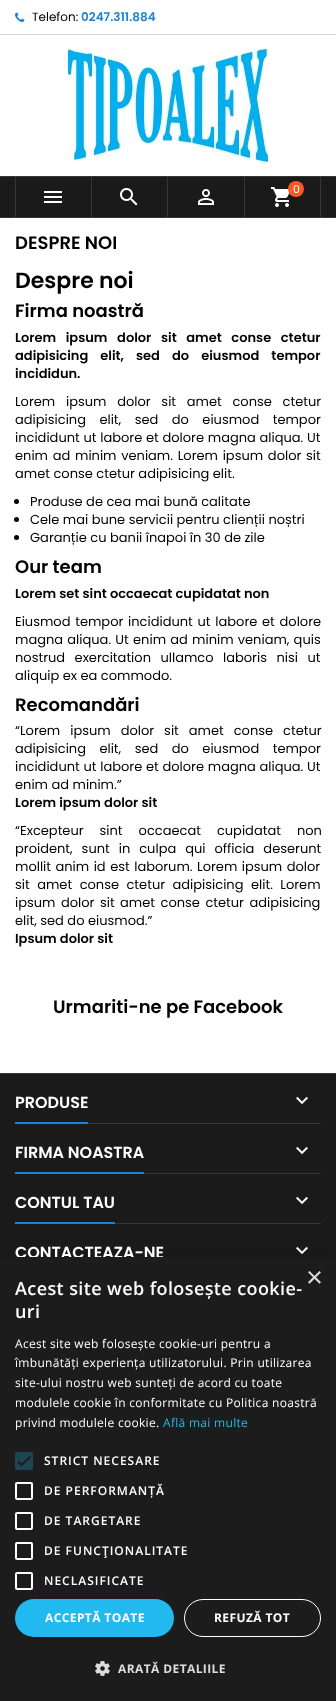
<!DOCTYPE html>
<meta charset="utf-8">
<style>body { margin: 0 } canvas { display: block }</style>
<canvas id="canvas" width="336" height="1701"></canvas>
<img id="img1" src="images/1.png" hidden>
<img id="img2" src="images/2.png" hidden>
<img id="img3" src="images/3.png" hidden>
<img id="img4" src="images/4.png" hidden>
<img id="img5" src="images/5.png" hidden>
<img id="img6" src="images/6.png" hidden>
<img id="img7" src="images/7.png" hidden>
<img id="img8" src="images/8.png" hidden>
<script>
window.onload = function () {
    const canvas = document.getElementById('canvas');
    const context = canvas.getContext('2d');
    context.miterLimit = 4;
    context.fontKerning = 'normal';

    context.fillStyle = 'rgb(255, 255, 255)';
    context.fillRect(0, 0, 336, 1701);
    context.fillStyle = 'rgb(214, 212, 212)';
    context.fillRect(0, 34, 336, 1);
    context.drawImage(document.getElementById('img1'), 15, 12, 10, 10);
    context.drawImage(document.getElementById('img2'), 68, 49, 200, 113);
    context.fillStyle = 'rgb(27, 26, 27)';
    context.fillRect(0, 177, 336, 40);
    context.fillStyle = 'rgb(54, 54, 54)';
    context.fillRect(0, 176, 336, 1);
    context.fillRect(0, 217, 336, 1);
    context.fillRect(91, 177, 1, 40);
    context.fillRect(15, 177, 1, 40);
    context.drawImage(document.getElementById('img3'), 44, 191, 18, 12);
    context.fillRect(167, 177, 1, 40);
    context.drawImage(document.getElementById('img4'), 120, 188, 18, 18);
    context.fillRect(244, 177, 1, 40);
    context.drawImage(document.getElementById('img5'), 198, 189, 16, 16);
    context.fillRect(320, 177, 1, 40);
    context.drawImage(document.getElementById('img6'), 271, 187, 19, 20);
    context.fillStyle = 'rgb(255, 87, 34)';
    context.beginPath();
    context.arc(296, 189, 8, 0, 2 * Math.PI);
    context.fill();
    context.fillStyle = 'rgb(0, 0, 0)';
    context.beginPath();
    context.arc(16.5, 501.5, 2.5, 0, 2 * Math.PI);
    context.fill();
    context.beginPath();
    context.arc(16.5, 519.5, 2.5, 0, 2 * Math.PI);
    context.fill();
    context.beginPath();
    context.arc(16.5, 537.5, 2.5, 0, 2 * Math.PI);
    context.fill();
    context.fillStyle = 'rgb(27, 26, 27)';
    context.fillRect(0, 1074, 336, 183);
    context.fillStyle = 'rgb(54, 54, 54)';
    context.fillRect(0, 1073, 336, 1);
    context.fillRect(88, 1123, 233, 1);
    context.fillStyle = 'rgb(27, 130, 214)';
    context.fillRect(15, 1122, 73, 2);
    context.drawImage(document.getElementById('img7'), 296, 1096, 12, 9);
    context.fillStyle = 'rgb(54, 54, 54)';
    context.fillRect(144, 1173, 177, 1);
    context.fillStyle = 'rgb(27, 130, 214)';
    context.fillRect(15, 1172, 129, 2);
    context.drawImage(document.getElementById('img7'), 296, 1146, 12, 9);
    context.fillStyle = 'rgb(54, 54, 54)';
    context.fillRect(115, 1223, 206, 1);
    context.fillStyle = 'rgb(27, 130, 214)';
    context.fillRect(15, 1222, 100, 2);
    context.drawImage(document.getElementById('img7'), 296, 1196, 12, 9);
    context.drawImage(document.getElementById('img7'), 296, 1246, 12, 9);
    context.fillStyle = 'rgba(0, 0, 0, 0.35)';
    context.filter = 'blur(4px)';
    context.beginPath();
    context.rect(1, 1259, 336, 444);
    context.fill();
    context.filter = 'none';
    context.font = '12px Poppins';
    context.fillStyle = 'rgb(0, 0, 0)';
    context.fillText('Telefon:', 32, 21);
    context.font = '600 12px Poppins';
    context.fillStyle = 'rgb(27, 130, 214)';
    context.fillText('0247.311.884', 81, 21);
    context.font = '11px Poppins';
    context.fillStyle = 'rgb(255, 255, 255)';
    context.fillText('0', 293, 193);
    context.font = '600 18px Poppins';
    context.fillStyle = 'rgb(0, 0, 0)';
    context.fillText('DESPRE NOI', 15, 249);
    context.font = '600 22px Poppins';
    context.fillText('Despre noi', 15, 288);
    context.font = '600 18px Poppins';
    context.fillText('Firma noastră', 15, 317);
    context.wordSpacing = '6.5px';
    context.font = '600 13px Poppins';
    context.fillText('Lorem ipsum dolor sit amet conse ctetur', 15, 342);
    context.wordSpacing = '9px';
    context.fillText('adipisicing elit, sed do eiusmod tempor', 15, 360);
    context.wordSpacing = '0px';
    context.fillText('incididun.', 15, 378);
    context.wordSpacing = '7.25px';
    context.font = '13px Poppins';
    context.fillText('Lorem ipsum dolor sit amet conse ctetur', 15, 406);
    context.wordSpacing = '10px';
    context.fillText('adipisicing elit, sed do eiusmod tempor', 15, 424);
    context.wordSpacing = '0.25px';
    context.fillText('incididunt ut labore et dolore magna aliqua. Ut', 15, 442);
    context.wordSpacing = '1.25px';
    context.fillText('enim ad minim veniam. Lorem ipsum dolor sit', 15, 460);
    context.wordSpacing = '0px';
    context.fillText('amet conse ctetur adipisicing elit.', 15, 478);
    context.fillText('Produse de cea mai bună calitate', 30, 506);
    context.fillText('Cele mai bune servicii pentru clienții noștri', 30, 524);
    context.fillText('Garanție cu banii înapoi în 30 de zile', 30, 542);
    context.font = '600 18px Poppins';
    context.fillText('Our team', 15, 573);
    context.font = '600 13px Poppins';
    context.fillText('Lorem set sint occaecat cupidatat non', 15, 598);
    context.wordSpacing = '1.25px';
    context.font = '13px Poppins';
    context.fillText('Eiusmod tempor incididunt ut labore et dolore', 15, 626);
    context.wordSpacing = '0.75px';
    context.fillText('magna aliqua. Ut enim ad minim veniam, quis', 15, 644);
    context.wordSpacing = '6px';
    context.fillText('nostrud exercitation ullamco laboris nisi ut', 15, 662);
    context.wordSpacing = '0px';
    context.fillText('aliquip ex ea commodo.', 15, 680);
    context.font = '600 18px Poppins';
    context.fillText('Recomandări', 15, 711);
    context.font = '13px Poppins';
    context.fillText('“', 15, 735);
    context.wordSpacing = '6.5px';
    context.fillText('Lorem ipsum dolor sit amet conse ctetur', 20, 735);
    context.wordSpacing = '10px';
    context.fillText('adipisicing elit, sed do eiusmod tempor', 15, 753);
    context.wordSpacing = '0.25px';
    context.fillText('incididunt ut labore et dolore magna aliqua. Ut', 15, 771);
    context.wordSpacing = '0px';
    context.fillText('enim ad minim.”', 15, 789);
    context.font = '600 13px Poppins';
    context.fillText('Lorem ipsum dolor sit', 15, 807);
    context.font = '13px Poppins';
    context.fillText('“', 15, 835);
    context.wordSpacing = '12.5px';
    context.fillText('Excepteur sint occaecat cupidatat non', 20, 835);
    context.wordSpacing = '5.5px';
    context.fillText('proident, sunt in culpa qui officia deserunt', 15, 853);
    context.wordSpacing = '1px';
    context.fillText('mollit anim id est laborum. Lorem ipsum dolor', 15, 871);
    context.wordSpacing = '4px';
    context.fillText('sit amet conse ctetur adipisicing elit. Lorem', 15, 889);
    context.wordSpacing = '2px';
    context.fillText('ipsum dolor sit amet conse ctetur adipisicing', 15, 907);
    context.wordSpacing = '0px';
    context.fillText('elit, sed do eiusmod.”', 15, 925);
    context.font = '600 13px Poppins';
    context.fillText('Ipsum dolor sit', 15, 943);
    context.font = '600 18px Poppins';
    context.fillText('Urmariti-ne pe Facebook', 53, 1013);
    context.font = '600 16px Poppins';
    context.fillStyle = 'rgb(255, 255, 255)';
    context.fillText('PRODUSE', 15, 1108);
    context.fillText('FIRMA NOASTRA', 15, 1158);
    context.fillText('CONTUL TAU', 15, 1208);
    context.fillText('CONTACTEAZA-NE', 15, 1258);
    context.fillStyle = 'rgb(28, 28, 28)';
    context.fillRect(0, 1257, 336, 444);
    context.font = '29px Liberation Sans';
    context.fillStyle = 'rgb(221, 221, 221)';
    context.fillText('×', 306, 1287);
    context.letterSpacing = '0.4px';
    context.font = '600 18px Open Sans';
    context.fillStyle = 'rgb(255, 255, 255)';
    context.fillText('Acest site web folosește cookie-', 15, 1295);
    context.fillText('uri', 15, 1318);
    context.letterSpacing = '0.3px';
    context.font = '12px Open Sans';
    context.fillText('Acest site web folosește cookie-uri pentru a', 15, 1348);
    context.fillText('îmbunătăți experiența utilizatorului. Prin utilizarea', 15, 1367);
    context.fillText('site-ului nostru web sunteți de acord cu toate', 15, 1387);
    context.fillText('modulele cookie în conformitate cu Politica noastră', 15, 1407);
    context.fillText('privind modulele cookie.', 15, 1427);
    context.fillStyle = 'rgb(34, 184, 240)';
    context.fillText('Află mai multe', 163, 1427);
    context.fillStyle = 'rgb(30, 69, 83)';
    context.beginPath();
    context.roundRect(15, 1452, 18, 18, 2);
    context.fill();
    context.beginPath();
    context.moveTo(18, 1461.5);
    context.lineTo(21.5, 1465);
    context.lineTo(30.5, 1456.5);
    context.strokeStyle = 'rgb(28, 28, 28)';
    context.lineWidth = 1.8;
    context.stroke();
    context.letterSpacing = '1px';
    context.font = '600 12px Open Sans';
    context.fillStyle = 'rgb(255, 255, 255)';
    context.fillText('STRICT NECESARE', 44, 1465);
    context.beginPath();
    context.roundRect(16, 1483, 16, 16, 1);
    context.strokeStyle = 'rgb(255, 255, 255)';
    context.lineWidth = 2;
    context.stroke();
    context.fillText('DE PERFORMANȚĂ', 44, 1495);
    context.beginPath();
    context.roundRect(16, 1513, 16, 16, 1);
    context.stroke();
    context.fillText('DE TARGETARE', 44, 1525);
    context.beginPath();
    context.roundRect(16, 1543, 16, 16, 1);
    context.stroke();
    context.fillText('DE FUNCŢIONALITATE', 44, 1555);
    context.beginPath();
    context.roundRect(16, 1573, 16, 16, 1);
    context.stroke();
    context.fillText('NECLASIFICATE', 44, 1585);
    context.fillStyle = 'rgb(34, 184, 240)';
    context.beginPath();
    context.roundRect(15, 1599, 159, 38, 19);
    context.fill();
    context.letterSpacing = '0.4px';
    context.font = 'bold 12px Open Sans';
    context.fillStyle = 'rgb(255, 255, 255)';
    context.fillText('ACCEPTĂ TOATE', 45, 1622);
    context.beginPath();
    context.roundRect(184.5, 1599.5, 136, 37, 18.5);
    context.lineWidth = 1;
    context.stroke();
    context.fillText('REFUZĂ TOT', 214, 1622);
    context.drawImage(document.getElementById('img8'), 95, 1661, 15, 15);
    context.fillStyle = 'rgb(221, 221, 221)';
    context.fillText('ARATĂ DETALIILE', 118, 1673);
};
</script>
